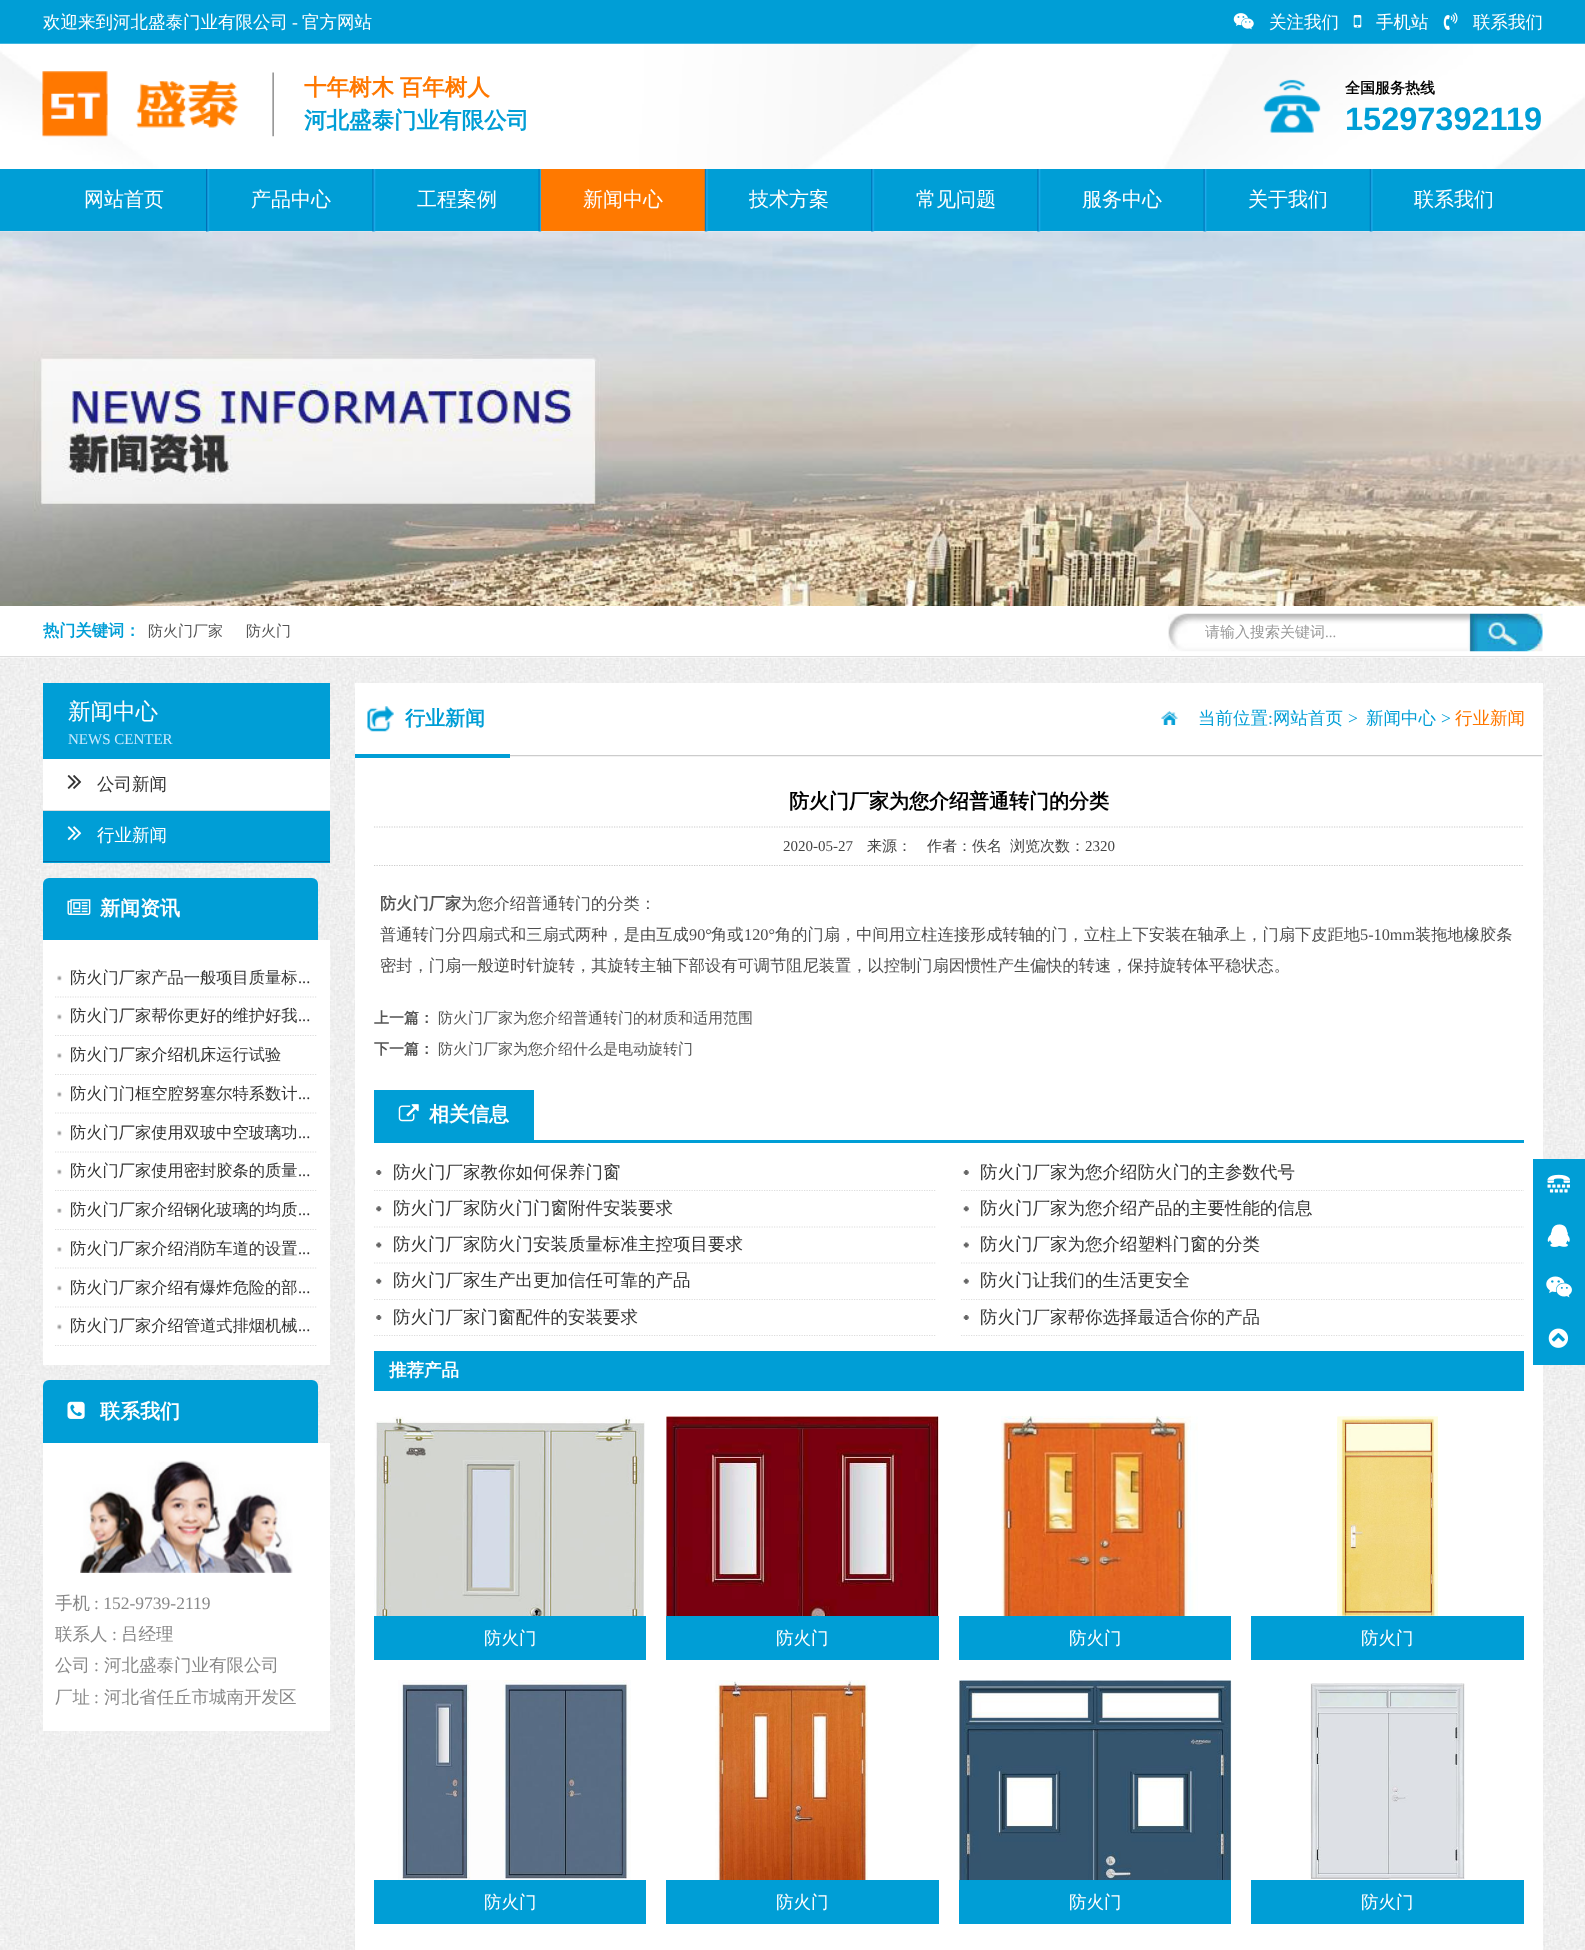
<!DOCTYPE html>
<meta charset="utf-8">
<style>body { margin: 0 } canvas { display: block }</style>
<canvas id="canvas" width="1585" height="1950"></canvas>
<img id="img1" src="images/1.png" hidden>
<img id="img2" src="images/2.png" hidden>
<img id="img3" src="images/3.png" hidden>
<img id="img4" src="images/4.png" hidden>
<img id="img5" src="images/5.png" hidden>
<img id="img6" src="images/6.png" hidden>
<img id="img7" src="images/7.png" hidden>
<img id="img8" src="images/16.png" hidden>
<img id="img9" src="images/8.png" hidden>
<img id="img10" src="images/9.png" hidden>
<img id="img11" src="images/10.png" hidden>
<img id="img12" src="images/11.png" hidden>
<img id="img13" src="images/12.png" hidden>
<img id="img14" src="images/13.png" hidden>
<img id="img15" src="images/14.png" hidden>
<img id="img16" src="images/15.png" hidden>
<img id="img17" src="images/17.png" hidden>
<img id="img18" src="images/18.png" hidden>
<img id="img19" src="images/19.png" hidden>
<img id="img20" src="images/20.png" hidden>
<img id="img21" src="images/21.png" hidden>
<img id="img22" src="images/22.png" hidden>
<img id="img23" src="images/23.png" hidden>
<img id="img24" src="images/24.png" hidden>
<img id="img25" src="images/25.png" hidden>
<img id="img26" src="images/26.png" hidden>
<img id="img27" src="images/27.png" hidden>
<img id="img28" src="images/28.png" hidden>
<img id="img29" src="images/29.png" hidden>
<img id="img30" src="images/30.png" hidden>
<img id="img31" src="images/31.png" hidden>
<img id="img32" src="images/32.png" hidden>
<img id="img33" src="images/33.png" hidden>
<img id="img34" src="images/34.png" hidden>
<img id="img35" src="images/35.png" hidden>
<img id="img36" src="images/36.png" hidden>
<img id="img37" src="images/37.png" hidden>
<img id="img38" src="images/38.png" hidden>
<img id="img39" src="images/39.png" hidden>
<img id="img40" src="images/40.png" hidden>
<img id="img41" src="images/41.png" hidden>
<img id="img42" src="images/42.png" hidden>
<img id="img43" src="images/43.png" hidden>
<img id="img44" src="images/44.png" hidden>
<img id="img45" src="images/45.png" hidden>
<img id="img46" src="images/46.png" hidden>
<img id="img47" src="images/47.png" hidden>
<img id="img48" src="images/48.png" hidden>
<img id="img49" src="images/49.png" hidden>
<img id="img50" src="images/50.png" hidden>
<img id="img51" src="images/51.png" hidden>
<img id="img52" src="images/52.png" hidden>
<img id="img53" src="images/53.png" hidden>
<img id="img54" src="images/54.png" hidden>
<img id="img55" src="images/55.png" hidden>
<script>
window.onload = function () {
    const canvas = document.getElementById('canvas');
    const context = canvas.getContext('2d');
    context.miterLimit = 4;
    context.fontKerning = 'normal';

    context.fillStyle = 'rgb(255, 255, 255)';
    context.fillRect(0, 0, 1585, 1950);
    context.fillStyle = 'rgb(0, 158, 214)';
    context.fillRect(0, 0, 1585, 44);
    context.drawImage(document.getElementById('img1'), 1233, 13, 21, 17);
    context.drawImage(document.getElementById('img2'), 1353, 15, 9, 13);
    context.drawImage(document.getElementById('img3'), 1443, 12, 15, 18);
    context.drawImage(document.getElementById('img4'), 0, 43, 1585, 126);
    context.drawImage(document.getElementById('img5'), 42, 71, 197, 66);
    context.drawImage(document.getElementById('img6'), 272, 72, 2, 65);
    context.drawImage(document.getElementById('img7'), 1263, 79, 58, 54);
    context.fillRect(0, 169, 1585, 62);
    context.drawImage(document.getElementById('img8'), 0, 231, 1585, 375);
    context.drawImage(document.getElementById('img9'), 206, 169, 4, 63);
    context.drawImage(document.getElementById('img10'), 372, 169, 4, 63);
    context.drawImage(document.getElementById('img11'), 538, 169, 4, 63);
    context.fillStyle = 'rgb(255, 121, 0)';
    context.fillRect(541, 169, 164, 62);
    context.drawImage(document.getElementById('img12'), 704, 169, 5, 63);
    context.drawImage(document.getElementById('img13'), 871, 169, 4, 63);
    context.drawImage(document.getElementById('img14'), 1037, 169, 4, 63);
    context.drawImage(document.getElementById('img15'), 1203, 169, 4, 63);
    context.drawImage(document.getElementById('img16'), 1369, 169, 4, 63);
    context.fillStyle = 'rgb(221, 221, 221)';
    context.fillRect(0, 656, 1585, 1);
    context.drawImage(document.getElementById('img17'), 1168, 613, 375, 39);
    context.drawImage(document.getElementById('img18'), 0, 657, 1585, 1293);
    context.fillStyle = 'rgb(0, 158, 214)';
    context.fillRect(43, 683, 287, 76);
    context.fillStyle = 'rgb(255, 255, 255)';
    context.fillRect(43, 759, 287, 51);
    context.fillStyle = 'rgb(221, 221, 221)';
    context.fillRect(43, 810, 287, 1);
    context.drawImage(document.getElementById('img19'), 67, 775, 15, 14);
    context.fillStyle = 'rgb(0, 158, 214)';
    context.fillRect(43, 811, 287, 52);
    context.fillStyle = 'rgb(0, 114, 170)';
    context.fillRect(43, 861, 287, 1);
    context.drawImage(document.getElementById('img20'), 67, 826, 15, 15);
    context.fillStyle = 'rgb(0, 158, 214)';
    context.beginPath();
    context.roundRect(43, 878, 275, 62, [6, 6, 0, 0]);
    context.fill();
    context.drawImage(document.getElementById('img21'), 67, 899, 24, 16);
    context.fillStyle = 'rgb(255, 255, 255)';
    context.fillRect(43, 940, 287, 425);
    context.drawImage(document.getElementById('img22'), 57, 975, 5, 6);
    context.beginPath();
    context.moveTo(55, 997);
    context.lineTo(317.5, 997);
    context.strokeStyle = 'rgb(221, 221, 221)';
    context.lineWidth = 1.2;
    context.setLineDash([1.25, 1.25]);
    context.stroke();
    context.drawImage(document.getElementById('img23'), 57, 1014, 5, 6);
    context.beginPath();
    context.moveTo(55, 1035.5);
    context.lineTo(317.5, 1035.5);
    context.stroke();
    context.drawImage(document.getElementById('img24'), 57, 1053, 5, 6);
    context.beginPath();
    context.moveTo(55, 1074.5);
    context.lineTo(317.5, 1074.5);
    context.stroke();
    context.drawImage(document.getElementById('img25'), 57, 1091, 5, 6);
    context.beginPath();
    context.moveTo(55, 1113);
    context.lineTo(317.5, 1113);
    context.stroke();
    context.drawImage(document.getElementById('img26'), 57, 1130, 5, 6);
    context.beginPath();
    context.moveTo(55, 1152);
    context.lineTo(317.5, 1152);
    context.stroke();
    context.drawImage(document.getElementById('img27'), 57, 1169, 5, 6);
    context.beginPath();
    context.moveTo(55, 1190.5);
    context.lineTo(317.5, 1190.5);
    context.stroke();
    context.drawImage(document.getElementById('img28'), 57, 1208, 5, 5);
    context.beginPath();
    context.moveTo(55, 1229.5);
    context.lineTo(317.5, 1229.5);
    context.stroke();
    context.drawImage(document.getElementById('img29'), 57, 1247, 5, 5);
    context.beginPath();
    context.moveTo(55, 1268);
    context.lineTo(317.5, 1268);
    context.stroke();
    context.drawImage(document.getElementById('img22'), 57, 1285, 5, 6);
    context.beginPath();
    context.moveTo(55, 1307);
    context.lineTo(317.5, 1307);
    context.stroke();
    context.drawImage(document.getElementById('img23'), 57, 1324, 5, 6);
    context.beginPath();
    context.moveTo(55, 1345.5);
    context.lineTo(317.5, 1345.5);
    context.stroke();
    context.fillStyle = 'rgb(0, 158, 214)';
    context.beginPath();
    context.roundRect(43, 1380, 275, 63, [6, 6, 0, 0]);
    context.fill();
    context.drawImage(document.getElementById('img30'), 67, 1401, 18, 18);
    context.fillStyle = 'rgb(255, 255, 255)';
    context.fillRect(43, 1443, 287, 288);
    context.drawImage(document.getElementById('img31'), 80, 1460, 213, 113);
    context.fillRect(355, 683, 1188, 1267);
    context.drawImage(document.getElementById('img32'), 510, 755, 1033, 2);
    context.drawImage(document.getElementById('img33'), 367, 706, 27, 26);
    context.fillStyle = 'rgb(1, 158, 214)';
    context.fillRect(355, 754, 155, 4);
    context.drawImage(document.getElementById('img34'), 1161, 711, 17, 14);
    context.beginPath();
    context.moveTo(374, 827);
    context.lineTo(1524, 827);
    context.strokeStyle = 'rgb(204, 204, 204)';
    context.stroke();
    context.beginPath();
    context.moveTo(374, 865.5);
    context.lineTo(1524, 865.5);
    context.stroke();
    context.fillStyle = 'rgb(0, 158, 214)';
    context.fillRect(374, 1140, 1150, 3);
    context.fillRect(374, 1090, 160, 50);
    context.drawImage(document.getElementById('img35'), 398, 1104, 21, 18);
    context.drawImage(document.getElementById('img36'), 376, 1170, 6, 5);
    context.beginPath();
    context.moveTo(374, 1190.5);
    context.lineTo(936, 1190.5);
    context.strokeStyle = 'rgb(221, 221, 221)';
    context.stroke();
    context.drawImage(document.getElementById('img37'), 963, 1170, 6, 5);
    context.beginPath();
    context.moveTo(961, 1190.5);
    context.lineTo(1524, 1190.5);
    context.stroke();
    context.drawImage(document.getElementById('img38'), 376, 1206, 6, 6);
    context.beginPath();
    context.moveTo(374, 1227);
    context.lineTo(936, 1227);
    context.stroke();
    context.drawImage(document.getElementById('img39'), 963, 1206, 6, 6);
    context.beginPath();
    context.moveTo(961, 1227);
    context.lineTo(1524, 1227);
    context.stroke();
    context.drawImage(document.getElementById('img40'), 376, 1242, 6, 6);
    context.beginPath();
    context.moveTo(374, 1263);
    context.lineTo(936, 1263);
    context.stroke();
    context.drawImage(document.getElementById('img41'), 963, 1242, 6, 6);
    context.beginPath();
    context.moveTo(961, 1263);
    context.lineTo(1524, 1263);
    context.stroke();
    context.drawImage(document.getElementById('img42'), 376, 1278, 6, 6);
    context.beginPath();
    context.moveTo(374, 1299.5);
    context.lineTo(936, 1299.5);
    context.stroke();
    context.drawImage(document.getElementById('img43'), 963, 1278, 6, 6);
    context.beginPath();
    context.moveTo(961, 1299.5);
    context.lineTo(1524, 1299.5);
    context.stroke();
    context.drawImage(document.getElementById('img36'), 376, 1315, 6, 5);
    context.save();
    context.beginPath();
    context.rect(374, 1155, 1150, 181);
    context.clip();
    context.beginPath();
    context.moveTo(374, 1335.5);
    context.lineTo(936, 1335.5);
    context.stroke();
    context.restore();
    context.drawImage(document.getElementById('img37'), 963, 1315, 6, 5);
    context.save();
    context.beginPath();
    context.rect(374, 1155, 1150, 181);
    context.clip();
    context.beginPath();
    context.moveTo(961, 1335.5);
    context.lineTo(1524, 1335.5);
    context.stroke();
    context.restore();
    context.fillRect(374, 1351, 1150, 40);
    context.drawImage(document.getElementById('img44'), 374, 1416, 271, 200);
    context.fillRect(374, 1616, 272, 44);
    context.drawImage(document.getElementById('img45'), 666, 1416, 273, 200);
    context.fillRect(666, 1616, 273, 44);
    context.drawImage(document.getElementById('img46'), 1001, 1416, 197, 200);
    context.fillRect(959, 1616, 272, 44);
    context.drawImage(document.getElementById('img47'), 1337, 1416, 101, 200);
    context.fillRect(1251, 1616, 273, 44);
    context.drawImage(document.getElementById('img48'), 398, 1680, 233, 200);
    context.fillRect(374, 1880, 272, 44);
    context.drawImage(document.getElementById('img49'), 715, 1680, 153, 200);
    context.fillRect(666, 1880, 273, 44);
    context.drawImage(document.getElementById('img50'), 959, 1680, 273, 200);
    context.fillRect(959, 1880, 272, 44);
    context.drawImage(document.getElementById('img51'), 1310, 1683, 155, 197);
    context.fillRect(1251, 1880, 273, 44);
    context.fillRect(1533, 1159, 52, 206);
    context.drawImage(document.getElementById('img52'), 1547, 1174, 23, 19);
    context.drawImage(document.getElementById('img53'), 1547, 1224, 23, 23);
    context.drawImage(document.getElementById('img54'), 1546, 1276, 26, 22);
    context.drawImage(document.getElementById('img55'), 1548, 1328, 20, 20);
    context.font = '500 17.5px WenQuanYi Zen Hei';
    context.fillStyle = 'rgb(255, 255, 255)';
    context.fillText('欢迎来到河北盛泰门业有限公司', 43, 28);
    context.font = '17.5px Liberation Serif';
    context.fillText('-', 292, 28);
    context.font = '500 17.5px WenQuanYi Zen Hei';
    context.fillText('官方网站', 302, 28);
    context.fillText('关注我们', 1269, 28);
    context.fillText('手机站', 1376, 28);
    context.fillText('联系我们', 1473, 28);
    context.wordSpacing = '-1px';
    context.font = 'bold 22.5px WenQuanYi Zen Hei';
    context.fillStyle = 'rgb(255, 120, 0)';
    context.fillText('十年树木 百年树人', 304, 95);
    context.wordSpacing = '0px';
    context.fillStyle = 'rgb(0, 158, 214)';
    context.fillText('河北盛泰门业有限公司', 304, 128);
    context.font = 'bold 15px WenQuanYi Zen Hei';
    context.fillStyle = 'rgb(1, 1, 1)';
    context.fillText('全国服务热线', 1345, 93);
    context.font = 'bold 32.5px Liberation Sans';
    context.fillStyle = 'rgb(0, 158, 214)';
    context.fillText('15297392119', 1345, 130);
    context.font = '500 20px WenQuanYi Zen Hei';
    context.fillStyle = 'rgb(255, 255, 255)';
    context.fillText('网站首页', 84, 206);
    context.fillText('产品中心', 251, 206);
    context.fillText('工程案例', 417, 206);
    context.fillText('新闻中心', 583, 206);
    context.fillText('技术方案', 749, 206);
    context.fillText('常见问题', 916, 206);
    context.fillText('服务中心', 1082, 206);
    context.fillText('关于我们', 1248, 206);
    context.fillText('联系我们', 1414, 206);
    context.font = 'bold 16.25px WenQuanYi Zen Hei';
    context.fillStyle = 'rgb(0, 158, 214)';
    context.fillText('热门关键词：', 43, 636);
    context.font = '500 15px WenQuanYi Zen Hei';
    context.fillStyle = 'rgb(85, 85, 85)';
    context.fillText('防火门厂家', 148, 636);
    context.fillText('防火门', 246, 636);
    context.fillStyle = 'rgb(153, 153, 153)';
    context.fillText('请输入搜索关键词', 1205, 637);
    context.font = '15px Liberation Serif';
    context.fillText('...', 1325, 637);
    context.font = '500 22.5px WenQuanYi Zen Hei';
    context.fillStyle = 'rgb(255, 255, 255)';
    context.fillText('新闻中心', 68, 719);
    context.font = '15px Liberation Serif';
    context.fillStyle = 'rgb(202, 234, 255)';
    context.fillText('NEWS CENTER', 68, 744);
    context.font = '500 17.5px WenQuanYi Zen Hei';
    context.fillStyle = 'rgb(51, 51, 51)';
    context.fillText('公司新闻', 97, 790);
    context.fillStyle = 'rgb(255, 255, 255)';
    context.fillText('行业新闻', 97, 841);
    context.font = 'bold 20px WenQuanYi Zen Hei';
    context.fillText('新闻资讯', 100, 915);
    context.font = '500 16.25px WenQuanYi Zen Hei';
    context.fillStyle = 'rgb(51, 51, 51)';
    context.fillText('防火门厂家产品一般项目质量标', 70, 983);
    context.font = '16.25px Liberation Serif';
    context.fillText('...', 298, 983);
    context.font = '500 16.25px WenQuanYi Zen Hei';
    context.fillText('防火门厂家帮你更好的维护好我', 70, 1021);
    context.font = '16.25px Liberation Serif';
    context.fillText('...', 298, 1021);
    context.font = '500 16.25px WenQuanYi Zen Hei';
    context.fillText('防火门厂家介绍机床运行试验', 70, 1060);
    context.fillText('防火门门框空腔努塞尔特系数计', 70, 1099);
    context.font = '16.25px Liberation Serif';
    context.fillText('...', 298, 1099);
    context.font = '500 16.25px WenQuanYi Zen Hei';
    context.fillText('防火门厂家使用双玻中空玻璃功', 70, 1138);
    context.font = '16.25px Liberation Serif';
    context.fillText('...', 298, 1138);
    context.font = '500 16.25px WenQuanYi Zen Hei';
    context.fillText('防火门厂家使用密封胶条的质量', 70, 1176);
    context.font = '16.25px Liberation Serif';
    context.fillText('...', 298, 1176);
    context.font = '500 16.25px WenQuanYi Zen Hei';
    context.fillText('防火门厂家介绍钢化玻璃的均质', 70, 1215);
    context.font = '16.25px Liberation Serif';
    context.fillText('...', 298, 1215);
    context.font = '500 16.25px WenQuanYi Zen Hei';
    context.fillText('防火门厂家介绍消防车道的设置', 70, 1254);
    context.font = '16.25px Liberation Serif';
    context.fillText('...', 298, 1254);
    context.font = '500 16.25px WenQuanYi Zen Hei';
    context.fillText('防火门厂家介绍有爆炸危险的部', 70, 1293);
    context.font = '16.25px Liberation Serif';
    context.fillText('...', 298, 1293);
    context.font = '500 16.25px WenQuanYi Zen Hei';
    context.fillText('防火门厂家介绍管道式排烟机械', 70, 1331);
    context.font = '16.25px Liberation Serif';
    context.fillText('...', 298, 1331);
    context.font = 'bold 20px WenQuanYi Zen Hei';
    context.fillStyle = 'rgb(255, 255, 255)';
    context.fillText('联系我们', 100, 1418);
    context.font = '500 17.5px WenQuanYi Zen Hei';
    context.fillStyle = 'rgb(136, 136, 136)';
    context.fillText('手机', 55, 1609);
    context.font = '17.5px Liberation Serif';
    context.fillText(': 152-9739-2119', 94, 1609);
    context.font = '500 17.5px WenQuanYi Zen Hei';
    context.fillText('联系人', 55, 1640);
    context.font = '17.5px Liberation Serif';
    context.fillText(':', 112, 1640);
    context.font = '500 17.5px WenQuanYi Zen Hei';
    context.fillText('吕经理', 121, 1640);
    context.fillText('公司', 55, 1671);
    context.font = '17.5px Liberation Serif';
    context.fillText(':', 94, 1671);
    context.font = '500 17.5px WenQuanYi Zen Hei';
    context.fillText('河北盛泰门业有限公司', 104, 1671);
    context.fillText('厂址', 55, 1703);
    context.font = '17.5px Liberation Serif';
    context.fillText(':', 94, 1703);
    context.font = '500 17.5px WenQuanYi Zen Hei';
    context.fillText('河北省任丘市城南开发区', 104, 1703);
    context.font = 'bold 20px WenQuanYi Zen Hei';
    context.fillStyle = 'rgb(0, 158, 214)';
    context.fillText('行业新闻', 405, 725);
    context.font = '500 17.5px WenQuanYi Zen Hei';
    context.fillText('当前位置', 1198, 724);
    context.font = '17.5px Liberation Serif';
    context.fillText(':', 1268, 724);
    context.font = '500 17.5px WenQuanYi Zen Hei';
    context.fillText('网站首页', 1273, 724);
    context.font = '17.5px Liberation Serif';
    context.fillText('>', 1348, 724);
    context.font = '500 17.5px WenQuanYi Zen Hei';
    context.fillText('新闻中心', 1366, 724);
    context.font = '17.5px Liberation Serif';
    context.fillText('>', 1441, 724);
    context.font = '500 17.5px WenQuanYi Zen Hei';
    context.fillStyle = 'rgb(255, 120, 0)';
    context.fillText('行业新闻', 1455, 724);
    context.font = 'bold 20px WenQuanYi Zen Hei';
    context.fillStyle = 'rgb(1, 1, 1)';
    context.fillText('防火门厂家为您介绍普通转门的分类', 789, 808);
    context.font = '15px Liberation Serif';
    context.fillStyle = 'rgb(68, 68, 68)';
    context.fillText('2020-05-27', 783, 851);
    context.font = '500 15px WenQuanYi Zen Hei';
    context.fillText('来源：', 867, 851);
    context.fillText('作者：佚名', 927, 851);
    context.fillText('浏览次数：', 1010, 851);
    context.font = '15px Liberation Serif';
    context.fillText('2320', 1085, 851);
    context.font = 'bold 16.25px WenQuanYi Zen Hei';
    context.fillStyle = 'rgb(85, 85, 85)';
    context.fillText('防火门厂家', 380, 909);
    context.font = '500 16.25px WenQuanYi Zen Hei';
    context.fillStyle = 'rgb(77, 77, 77)';
    context.fillText('为您介绍普通转门的分类：', 461, 909);
    context.fillText('普通转门分四扇式和三扇式两种，是由互成', 380, 940);
    context.font = '16.25px Liberation Serif';
    context.fillText('90°', 689, 940);
    context.font = '500 16.25px WenQuanYi Zen Hei';
    context.fillText('角或', 711, 940);
    context.font = '16.25px Liberation Serif';
    context.fillText('120°', 744, 940);
    context.font = '500 16.25px WenQuanYi Zen Hei';
    context.fillText('角的门扇，中间用立柱连接形成转轴的门，立柱上下安装在轴承上，门扇下皮距地', 775, 940);
    context.font = '16.25px Liberation Serif';
    context.fillText('5-10mm', 1360, 940);
    context.font = '500 16.25px WenQuanYi Zen Hei';
    context.fillText('装拖地橡胶条', 1415, 940);
    context.fillText('密封，门扇一般逆时针旋转，其旋转主轴下部设有可调节阻尼装置，以控制门扇因惯性产生偏快的转速，保持旋转体平稳状态。', 380, 971);
    context.font = 'bold 15px WenQuanYi Zen Hei';
    context.fillStyle = 'rgb(85, 85, 85)';
    context.fillText('上一篇：', 374, 1023);
    context.font = '500 15px WenQuanYi Zen Hei';
    context.fillText('防火门厂家为您介绍普通转门的材质和适用范围', 438, 1023);
    context.font = 'bold 15px WenQuanYi Zen Hei';
    context.fillText('下一篇：', 374, 1054);
    context.font = '500 15px WenQuanYi Zen Hei';
    context.fillText('防火门厂家为您介绍什么是电动旋转门', 438, 1054);
    context.font = 'bold 20px WenQuanYi Zen Hei';
    context.fillStyle = 'rgb(255, 255, 255)';
    context.fillText('相关信息', 429, 1121);
    context.font = '500 17.5px WenQuanYi Zen Hei';
    context.fillStyle = 'rgb(51, 51, 51)';
    context.fillText('防火门厂家教你如何保养门窗', 393, 1178);
    context.fillText('防火门厂家为您介绍防火门的主参数代号', 980, 1178);
    context.fillText('防火门厂家防火门门窗附件安装要求', 393, 1214);
    context.fillText('防火门厂家为您介绍产品的主要性能的信息', 980, 1214);
    context.fillText('防火门厂家防火门安装质量标准主控项目要求', 393, 1250);
    context.fillText('防火门厂家为您介绍塑料门窗的分类', 980, 1250);
    context.fillText('防火门厂家生产出更加信任可靠的产品', 393, 1286);
    context.fillText('防火门让我们的生活更安全', 980, 1286);
    context.fillText('防火门厂家门窗配件的安装要求', 393, 1323);
    context.fillText('防火门厂家帮你选择最适合你的产品', 980, 1323);
    context.font = 'bold 17.5px WenQuanYi Zen Hei';
    context.fillStyle = 'rgb(255, 255, 255)';
    context.fillText('推荐产品', 389, 1376);
    context.font = '500 17.5px WenQuanYi Zen Hei';
    context.fillText('防火门', 484, 1644);
    context.fillText('防火门', 776, 1644);
    context.fillText('防火门', 1069, 1644);
    context.fillText('防火门', 1361, 1644);
    context.fillText('防火门', 484, 1908);
    context.fillText('防火门', 776, 1908);
    context.fillText('防火门', 1069, 1908);
    context.fillText('防火门', 1361, 1908);
};
</script>
